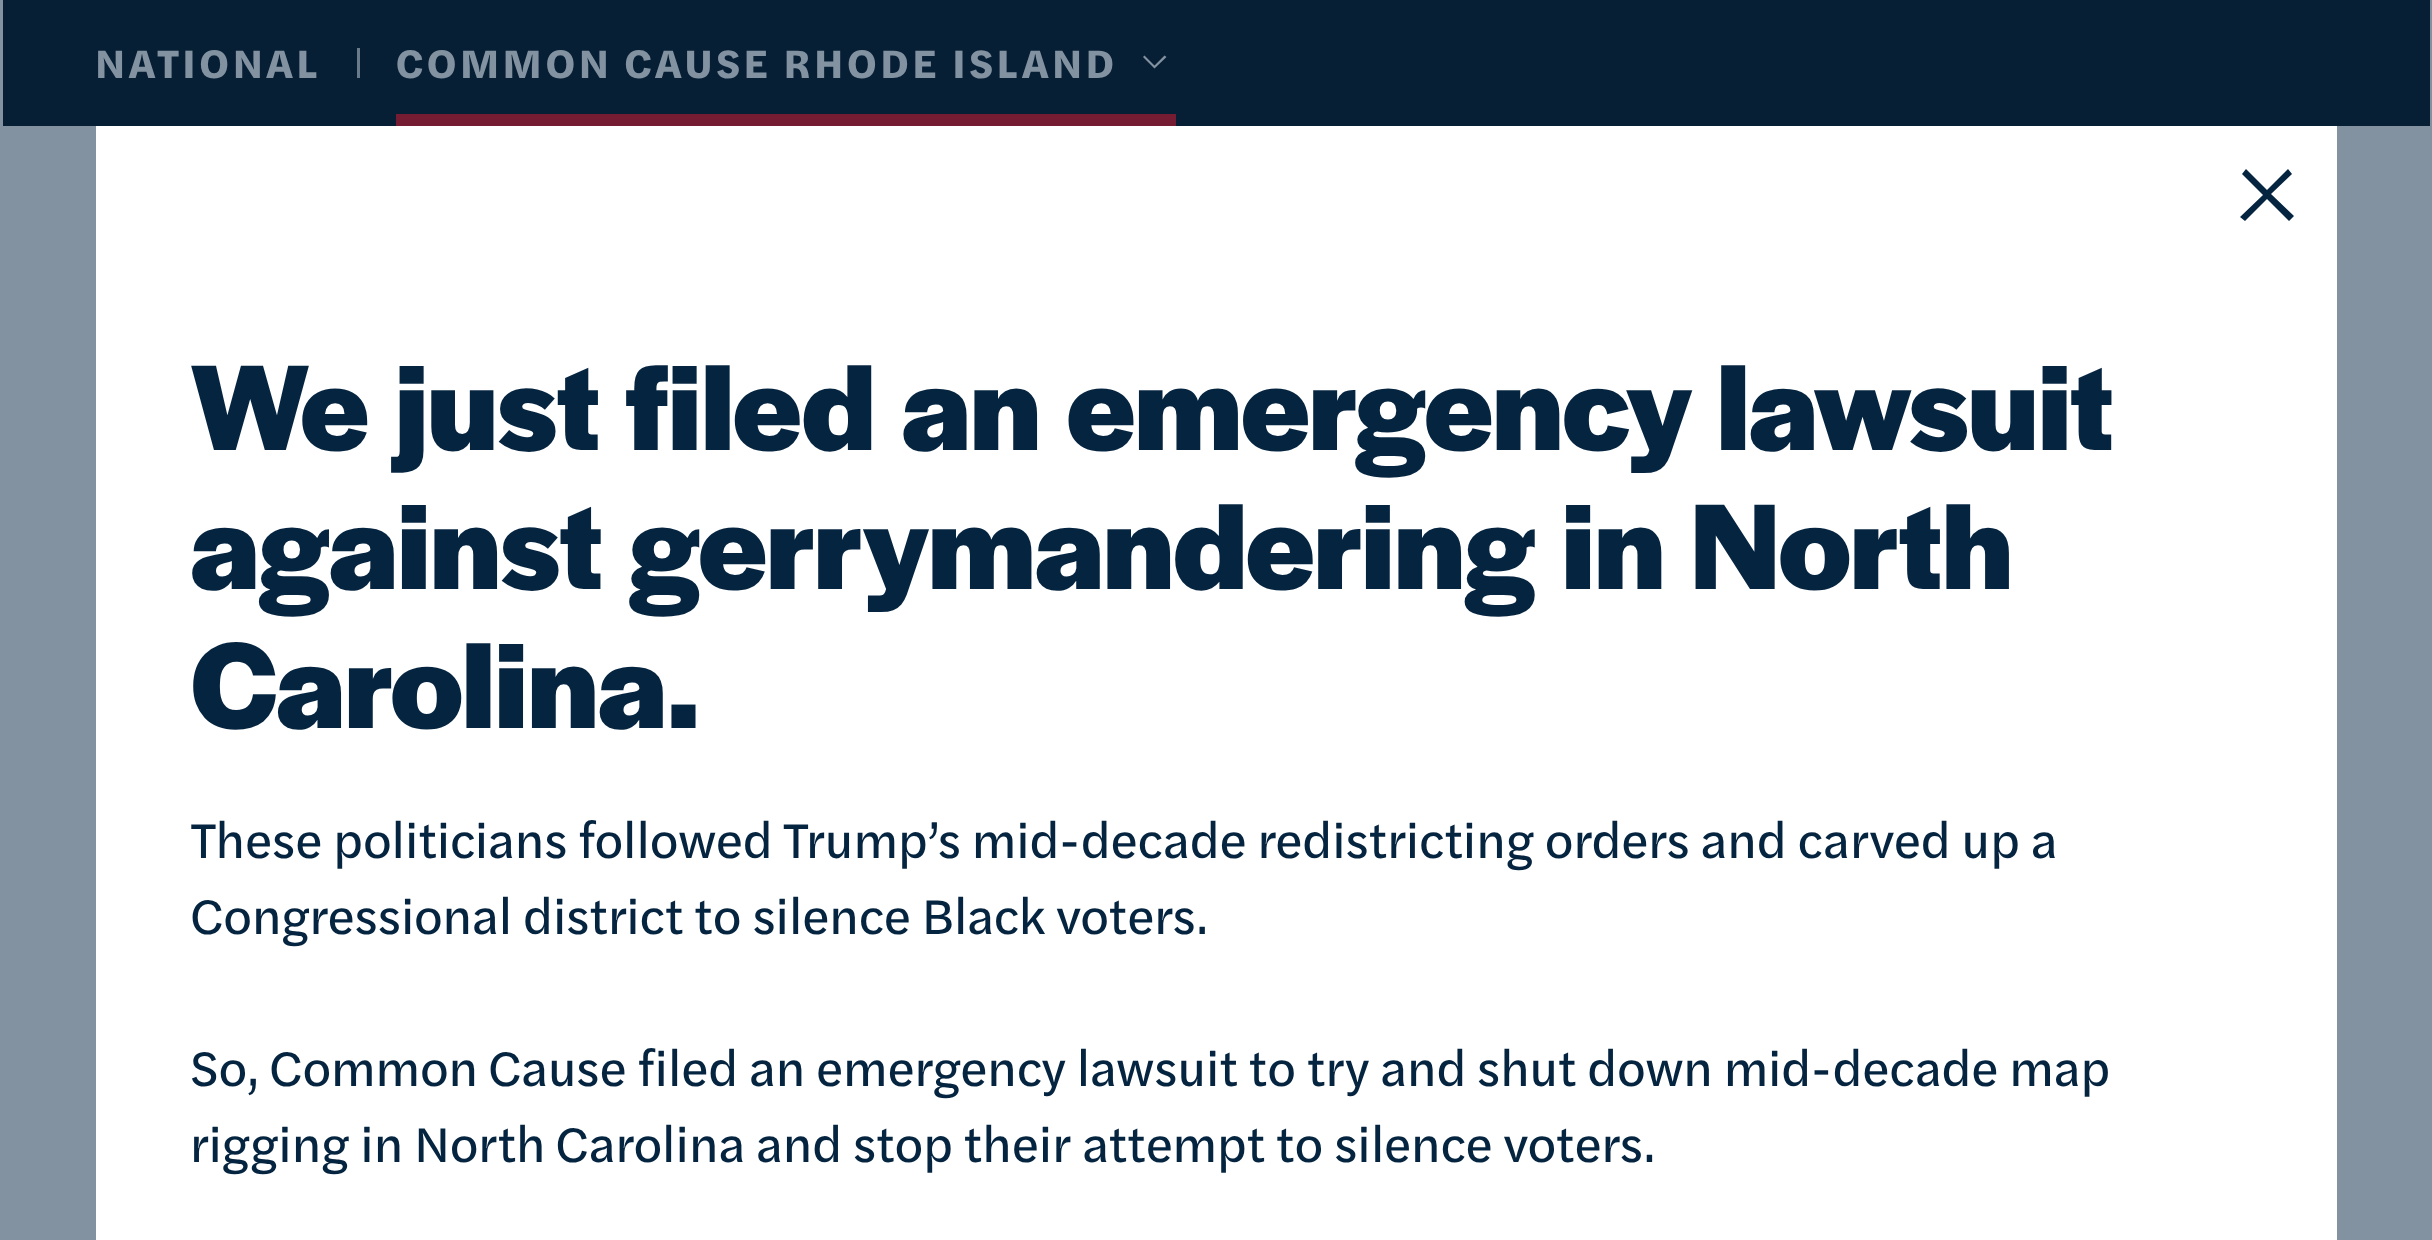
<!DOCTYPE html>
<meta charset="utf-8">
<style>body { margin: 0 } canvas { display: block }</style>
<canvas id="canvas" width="2432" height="1240"></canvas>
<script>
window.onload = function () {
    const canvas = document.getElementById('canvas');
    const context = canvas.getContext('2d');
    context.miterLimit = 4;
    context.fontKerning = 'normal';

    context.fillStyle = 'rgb(130, 146, 160)';
    context.fillRect(0, 0, 2432, 1240);
    context.fillStyle = 'rgb(6, 31, 53)';
    context.fillRect(3, 0, 2427, 126);
    context.fillStyle = 'rgb(118, 28, 50)';
    context.fillRect(396, 114, 780, 12);
    context.fillStyle = 'rgb(105, 123, 138)';
    context.fillRect(357, 48, 3, 30);
    context.fillStyle = 'rgb(130, 146, 160)';
    context.beginPath();
    context.moveTo(1154.5, 68.5);
    context.lineTo(1143, 57);
    context.lineTo(1144.5, 55.5);
    context.lineTo(1154.5, 65.5);
    context.lineTo(1164.5, 55.5);
    context.lineTo(1166.5, 57);
    context.closePath();
    context.fill();
    context.fillStyle = 'rgb(255, 255, 255)';
    context.fillRect(96, 126, 2241, 1114);
    context.fillStyle = 'rgb(5, 36, 64)';
    context.beginPath();
    context.moveTo(2289, 221);
    context.lineTo(2267, 199);
    context.lineTo(2245, 221);
    context.lineTo(2240, 217);
    context.lineTo(2263, 195);
    context.lineTo(2242, 174);
    context.lineTo(2246, 169);
    context.lineTo(2267, 190);
    context.lineTo(2288, 169);
    context.lineTo(2292, 174);
    context.lineTo(2271, 194);
    context.lineTo(2294, 216);
    context.closePath();
    context.fill();
    context.letterSpacing = '3.3px';
    context.font = 'bold 41.2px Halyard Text';
    context.fillStyle = 'rgb(130, 146, 160)';
    context.fillText('NATIONAL', 95, 78);
    context.fillText('COMMON CAUSE RHODE ISLAND', 396, 78);
    context.letterSpacing = '0px';
    context.font = 'bold 126.75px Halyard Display';
    context.fillStyle = 'rgb(5, 36, 64)';
    context.fillText('We just filed an emergency lawsuit', 190, 450);
    context.fillText('against gerrymandering in North', 190, 589);
    context.fillText('Carolina.', 190, 728);
    context.wordSpacing = '-0.25px';
    context.font = '50.7px Halyard Text';
    context.fillText('These politicians followed Trump’s mid-decade redistricting orders and carved up a', 190, 858);
    context.fillText('Congressional district to silence Black voters.', 190, 934);
    context.fillText('So, Common Cause filed an emergency lawsuit to try and shut down mid-decade map', 190, 1086);
    context.fillText('rigging in North Carolina and stop their attempt to silence voters.', 190, 1162);
};
</script>
